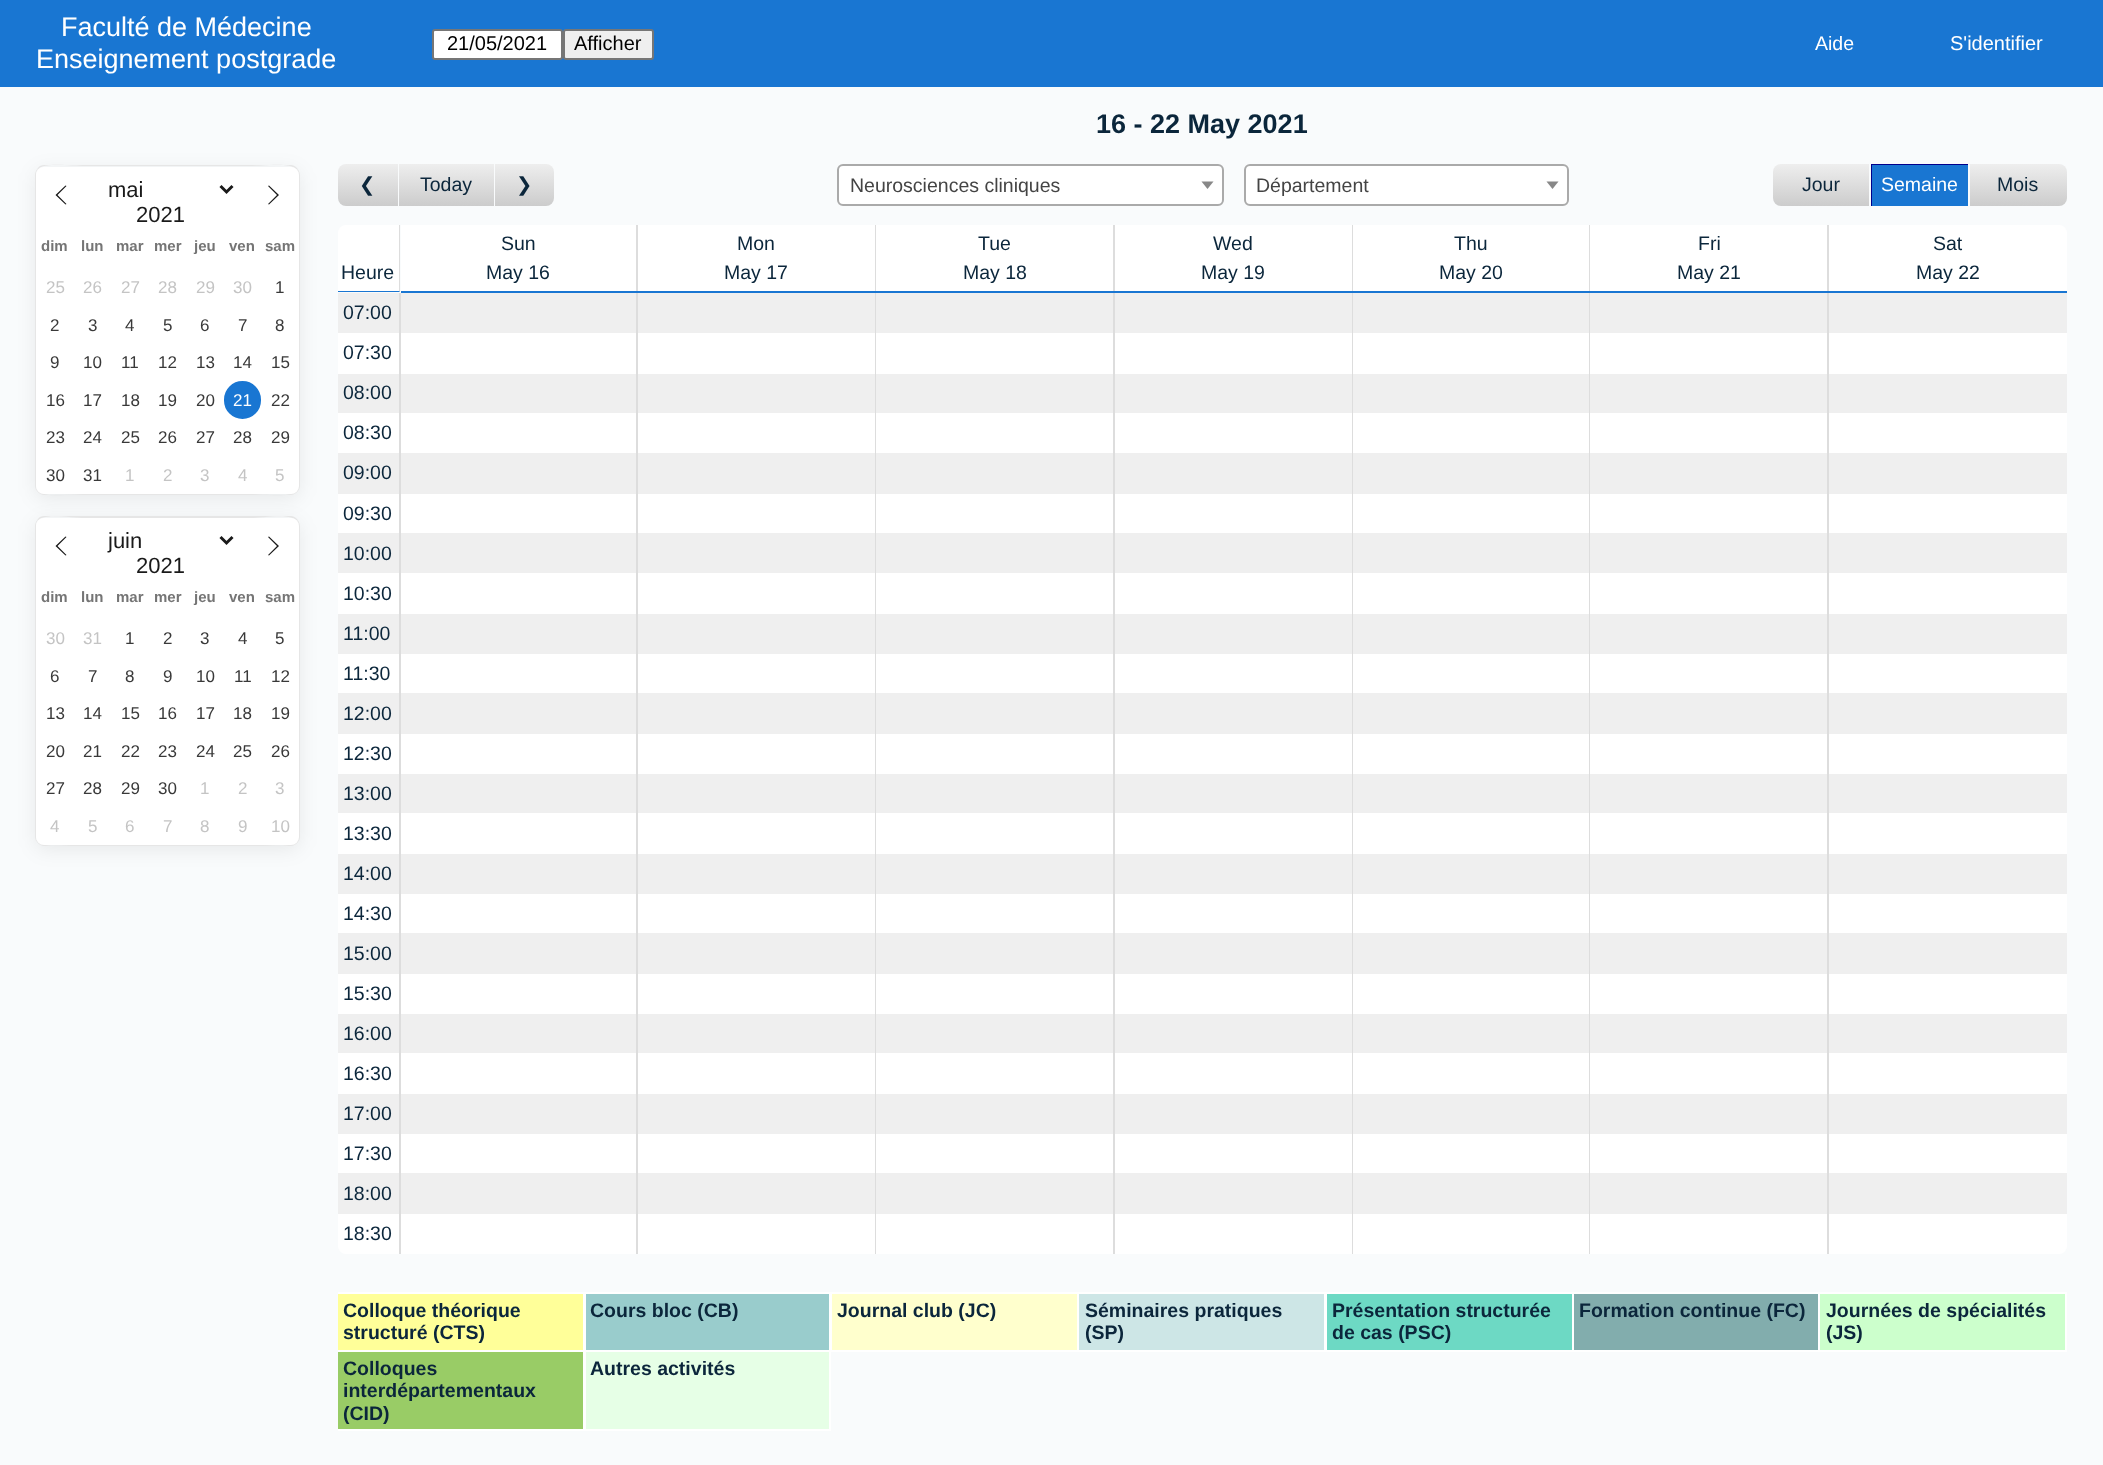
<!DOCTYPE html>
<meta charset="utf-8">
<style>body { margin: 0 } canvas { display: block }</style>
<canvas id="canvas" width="2103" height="1465"></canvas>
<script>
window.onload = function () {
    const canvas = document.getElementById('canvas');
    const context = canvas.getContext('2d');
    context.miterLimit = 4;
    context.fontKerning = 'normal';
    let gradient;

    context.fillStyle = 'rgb(249, 251, 252)';
    context.fillRect(0, 0, 2103, 1465);
    context.fillStyle = 'rgb(25, 118, 210)';
    context.fillRect(0, 0, 2103, 87);
    context.fillStyle = 'rgb(255, 255, 255)';
    context.beginPath();
    context.roundRect(433, 30, 129, 29, 2);
    context.fill();
    context.strokeStyle = 'rgb(118, 118, 118)';
    context.lineWidth = 2;
    context.stroke();
    context.fillStyle = 'rgb(239, 239, 239)';
    context.beginPath();
    context.roundRect(564, 30, 89, 29, 2);
    context.fill();
    context.stroke();
    context.fillStyle = 'rgba(0, 0, 0, 0.08)';
    context.filter = 'blur(10px)';
    context.beginPath();
    context.roundRect(36, 171, 263, 327, 8);
    context.fill();
    context.filter = 'none';
    context.fillStyle = 'rgb(230, 230, 230)';
    context.beginPath();
    context.moveTo(44, 165);
    context.bezierCurveTo(39, 165, 36, 169, 36, 174);
    context.bezierCurveTo(36, 160, 70, 166, 85, 166);
    context.lineTo(250, 166);
    context.bezierCurveTo(265, 166, 298, 160, 298, 174);
    context.lineTo(298, 487);
    context.lineTo(299, 484);
    context.lineTo(299, 173);
    context.bezierCurveTo(299, 169, 295, 165, 291, 165);
    context.closePath();
    context.fill();
    context.beginPath();
    context.moveTo(36, 486);
    context.lineTo(36, 487);
    context.bezierCurveTo(36, 491, 40, 495, 44, 495);
    context.lineTo(291, 495);
    context.bezierCurveTo(295, 495, 299, 491, 299, 487);
    context.lineTo(299, 176);
    context.lineTo(298, 173);
    context.lineTo(298, 486);
    context.bezierCurveTo(298, 500, 265, 494, 250, 494);
    context.lineTo(85, 494);
    context.bezierCurveTo(70, 494, 36, 500, 36, 486);
    context.closePath();
    context.fill();
    context.beginPath();
    context.moveTo(39, 168);
    context.bezierCurveTo(36, 170, 35, 172, 35, 175);
    context.lineTo(35, 486);
    context.bezierCurveTo(35, 490, 39, 494, 43, 494);
    context.lineTo(289, 494);
    context.lineTo(292, 493);
    context.lineTo(44, 494);
    context.bezierCurveTo(39, 494, 36, 490, 36, 486);
    context.lineTo(36, 174);
    context.bezierCurveTo(36, 172, 37, 170, 39, 168);
    context.closePath();
    context.fill();
    context.beginPath();
    context.moveTo(43, 493);
    context.lineTo(46, 494);
    context.lineTo(292, 494);
    context.bezierCurveTo(296, 494, 300, 490, 300, 486);
    context.lineTo(300, 175);
    context.bezierCurveTo(300, 172, 298, 169, 295, 167);
    context.bezierCurveTo(297, 169, 298, 171, 298, 174);
    context.lineTo(298, 486);
    context.bezierCurveTo(298, 490, 295, 494, 291, 494);
    context.closePath();
    context.fill();
    context.fillStyle = 'rgb(255, 255, 255)';
    context.beginPath();
    context.roundRect(36, 167, 263, 327, 8);
    context.fill();
    context.fillStyle = 'rgb(26, 26, 26)';
    context.beginPath();
    context.moveTo(57.5, 195);
    context.lineTo(66.5, 204);
    context.lineTo(65.5, 204.5);
    context.lineTo(55.5, 195);
    context.lineTo(65.5, 185.5);
    context.lineTo(66.5, 186);
    context.closePath();
    context.fill();
    context.beginPath();
    context.moveTo(220.5, 186);
    context.lineTo(226.5, 192);
    context.lineTo(232.5, 186);
    context.strokeStyle = 'rgb(26, 26, 26)';
    context.lineWidth = 3;
    context.stroke();
    context.beginPath();
    context.moveTo(279, 195);
    context.lineTo(269, 204.5);
    context.lineTo(268, 204);
    context.lineTo(277, 195);
    context.lineTo(268, 186);
    context.lineTo(269, 185.5);
    context.closePath();
    context.fill();
    context.fillStyle = 'rgb(25, 118, 210)';
    context.beginPath();
    context.roundRect(225, 382, 35, 36, 17.5);
    context.fill();
    context.strokeStyle = 'rgb(25, 118, 210)';
    context.lineWidth = 2;
    context.stroke();
    context.fillStyle = 'rgba(0, 0, 0, 0.08)';
    context.filter = 'blur(10px)';
    context.beginPath();
    context.roundRect(36, 522, 263, 327, 8);
    context.fill();
    context.filter = 'none';
    context.fillStyle = 'rgb(230, 230, 230)';
    context.beginPath();
    context.moveTo(44, 516);
    context.bezierCurveTo(39, 516, 36, 520, 36, 525);
    context.bezierCurveTo(36, 511, 70, 518, 85, 518);
    context.lineTo(250, 518);
    context.bezierCurveTo(265, 518, 298, 511, 298, 525);
    context.lineTo(298, 838);
    context.lineTo(299, 835);
    context.lineTo(299, 524);
    context.bezierCurveTo(299, 520, 295, 516, 291, 516);
    context.closePath();
    context.fill();
    context.beginPath();
    context.moveTo(36, 837);
    context.lineTo(36, 838);
    context.bezierCurveTo(36, 842, 40, 846, 44, 846);
    context.lineTo(291, 846);
    context.bezierCurveTo(295, 846, 299, 842, 299, 838);
    context.lineTo(299, 527);
    context.lineTo(298, 524);
    context.lineTo(298, 837);
    context.bezierCurveTo(298, 851, 265, 844, 250, 844);
    context.lineTo(85, 844);
    context.bezierCurveTo(70, 844, 36, 851, 36, 837);
    context.closePath();
    context.fill();
    context.beginPath();
    context.moveTo(39, 519);
    context.bezierCurveTo(36, 521, 35, 523, 35, 526);
    context.lineTo(35, 837);
    context.bezierCurveTo(35, 841, 39, 845, 43, 845);
    context.lineTo(289, 845);
    context.lineTo(292, 844);
    context.lineTo(44, 844);
    context.bezierCurveTo(39, 844, 36, 841, 36, 837);
    context.lineTo(36, 525);
    context.bezierCurveTo(36, 523, 37, 521, 39, 519);
    context.closePath();
    context.fill();
    context.beginPath();
    context.moveTo(43, 844);
    context.lineTo(46, 845);
    context.lineTo(292, 845);
    context.bezierCurveTo(296, 845, 300, 841, 300, 837);
    context.lineTo(300, 526);
    context.bezierCurveTo(300, 523, 298, 520, 295, 518);
    context.bezierCurveTo(297, 520, 298, 522, 298, 525);
    context.lineTo(298, 837);
    context.bezierCurveTo(298, 841, 295, 844, 291, 844);
    context.closePath();
    context.fill();
    context.fillStyle = 'rgb(255, 255, 255)';
    context.beginPath();
    context.roundRect(36, 518, 263, 327, 8);
    context.fill();
    context.fillStyle = 'rgb(26, 26, 26)';
    context.beginPath();
    context.moveTo(57.5, 546);
    context.lineTo(66.5, 555);
    context.lineTo(65.5, 555.5);
    context.lineTo(55.5, 546);
    context.lineTo(65.5, 536.5);
    context.lineTo(66.5, 537);
    context.closePath();
    context.fill();
    context.beginPath();
    context.moveTo(220.5, 537);
    context.lineTo(226.5, 543);
    context.lineTo(232.5, 537);
    context.strokeStyle = 'rgb(26, 26, 26)';
    context.lineWidth = 3;
    context.stroke();
    context.beginPath();
    context.moveTo(279, 546);
    context.lineTo(269, 555.5);
    context.lineTo(268, 555);
    context.lineTo(277, 546);
    context.lineTo(268, 537);
    context.lineTo(269, 536.5);
    context.closePath();
    context.fill();
    gradient = context.createLinearGradient(368, 164, 368, 206);
    gradient.addColorStop(0, 'rgb(238, 238, 238)');
    gradient.addColorStop(1, 'rgb(204, 204, 204)');
    context.fillStyle = gradient;
    context.beginPath();
    context.roundRect(338, 164, 61, 42, [8, 0, 0, 8]);
    context.fill();
    context.fillStyle = 'rgb(249, 251, 252)';
    context.fillRect(398, 164, 1, 42);
    gradient = context.createLinearGradient(446, 164, 446, 206);
    gradient.addColorStop(0, 'rgb(238, 238, 238)');
    gradient.addColorStop(1, 'rgb(204, 204, 204)');
    context.fillStyle = gradient;
    context.fillRect(399, 164, 95, 42);
    gradient = context.createLinearGradient(524, 164, 524, 206);
    gradient.addColorStop(0, 'rgb(238, 238, 238)');
    gradient.addColorStop(1, 'rgb(204, 204, 204)');
    context.fillStyle = gradient;
    context.beginPath();
    context.roundRect(495, 164, 59, 42, [0, 8, 8, 0]);
    context.fill();
    context.fillStyle = 'rgb(255, 255, 255)';
    context.beginPath();
    context.roundRect(838, 165, 385, 40, 5);
    context.fill();
    context.strokeStyle = 'rgb(170, 170, 170)';
    context.lineWidth = 2;
    context.stroke();
    context.fillStyle = 'rgb(136, 136, 136)';
    context.beginPath();
    context.moveTo(1201.5, 181.5);
    context.lineTo(1213.5, 181.5);
    context.lineTo(1207.5, 189);
    context.closePath();
    context.fill();
    context.fillStyle = 'rgb(255, 255, 255)';
    context.beginPath();
    context.roundRect(1245, 165, 323, 40, 5);
    context.fill();
    context.stroke();
    context.fillStyle = 'rgb(136, 136, 136)';
    context.beginPath();
    context.moveTo(1546.5, 181.5);
    context.lineTo(1558.5, 181.5);
    context.lineTo(1552.5, 189);
    context.closePath();
    context.fill();
    gradient = context.createLinearGradient(1821, 164, 1821, 206);
    gradient.addColorStop(0, 'rgb(238, 238, 238)');
    gradient.addColorStop(1, 'rgb(204, 204, 204)');
    context.fillStyle = gradient;
    context.beginPath();
    context.roundRect(1773, 164, 98, 42, [8, 0, 0, 8]);
    context.fill();
    context.fillStyle = 'rgb(249, 251, 252)';
    context.fillRect(1869, 164, 2, 42);
    context.fillStyle = 'rgb(25, 118, 210)';
    context.fillRect(1872, 165, 96, 41);
    context.save();
    context.beginPath();
    context.rect(1871, 164, 97, 42);
    context.clip();
    context.fillStyle = 'rgb(0, 0, 139)';
    context.beginPath();
    context.moveTo(1722, 15);
    context.lineTo(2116, 15);
    context.lineTo(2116, 354);
    context.lineTo(1722, 354);
    context.closePath();
    context.moveTo(1872, 165);
    context.lineTo(1970, 165);
    context.lineTo(1970, 207);
    context.lineTo(1872, 207);
    context.closePath();
    context.fill('evenodd');
    context.restore();
    gradient = context.createLinearGradient(2018, 164, 2018, 206);
    gradient.addColorStop(0, 'rgb(238, 238, 238)');
    gradient.addColorStop(1, 'rgb(204, 204, 204)');
    context.fillStyle = gradient;
    context.beginPath();
    context.roundRect(1970, 164, 97, 42, [0, 8, 8, 0]);
    context.fill();
    context.fillStyle = 'rgb(255, 255, 255)';
    context.beginPath();
    context.roundRect(338, 225, 61, 66, [8, 0, 0, 0]);
    context.fill();
    context.fillStyle = 'rgb(221, 221, 221)';
    context.beginPath();
    context.moveTo(400, 225);
    context.lineTo(399, 225);
    context.lineTo(399, 291);
    context.lineTo(400, 292);
    context.closePath();
    context.fill();
    context.fillStyle = 'rgb(25, 118, 210)';
    context.beginPath();
    context.moveTo(400, 292);
    context.lineTo(399, 291);
    context.lineTo(338, 291);
    context.lineTo(338, 292);
    context.closePath();
    context.fill();
    context.fillStyle = 'rgb(255, 255, 255)';
    context.fillRect(401, 225, 235, 66);
    context.fillStyle = 'rgb(221, 221, 221)';
    context.fillRect(636, 225, 2, 1029);
    context.fillRect(875, 225, 1, 1029);
    context.fillRect(1113, 225, 2, 1029);
    context.fillRect(1352, 225, 1, 1029);
    context.fillRect(1589, 225, 1, 1029);
    context.fillRect(1827, 225, 2, 1029);
    context.fillStyle = 'rgb(25, 118, 210)';
    context.fillRect(401, 291, 1666, 2);
    context.fillStyle = 'rgb(255, 255, 255)';
    context.fillRect(638, 225, 237, 66);
    context.fillRect(876, 225, 237, 66);
    context.fillRect(1115, 225, 237, 66);
    context.fillRect(1353, 225, 236, 66);
    context.fillRect(1590, 225, 237, 66);
    context.beginPath();
    context.roundRect(1829, 225, 238, 66, [0, 8, 0, 0]);
    context.fill();
    context.fillStyle = 'rgb(239, 239, 239)';
    context.fillRect(338, 293, 61, 40);
    context.fillStyle = 'rgb(221, 221, 221)';
    context.fillRect(399, 293, 2, 961);
    context.fillStyle = 'rgb(239, 239, 239)';
    context.fillRect(401, 293, 235, 40);
    context.fillRect(638, 293, 237, 40);
    context.fillRect(876, 293, 237, 40);
    context.fillRect(1115, 293, 237, 40);
    context.fillRect(1353, 293, 236, 40);
    context.fillRect(1590, 293, 237, 40);
    context.fillRect(1829, 293, 238, 40);
    context.fillStyle = 'rgb(255, 255, 255)';
    context.fillRect(338, 333, 61, 41);
    context.fillRect(401, 333, 235, 41);
    context.fillRect(638, 333, 237, 41);
    context.fillRect(876, 333, 237, 41);
    context.fillRect(1115, 333, 237, 41);
    context.fillRect(1353, 333, 236, 41);
    context.fillRect(1590, 333, 237, 41);
    context.fillRect(1829, 333, 238, 41);
    context.fillStyle = 'rgb(239, 239, 239)';
    context.fillRect(338, 374, 61, 39);
    context.fillRect(401, 374, 235, 39);
    context.fillRect(638, 374, 237, 39);
    context.fillRect(876, 374, 237, 39);
    context.fillRect(1115, 374, 237, 39);
    context.fillRect(1353, 374, 236, 39);
    context.fillRect(1590, 374, 237, 39);
    context.fillRect(1829, 374, 238, 39);
    context.fillStyle = 'rgb(255, 255, 255)';
    context.fillRect(338, 413, 61, 40);
    context.fillRect(401, 413, 235, 40);
    context.fillRect(638, 413, 237, 40);
    context.fillRect(876, 413, 237, 40);
    context.fillRect(1115, 413, 237, 40);
    context.fillRect(1353, 413, 236, 40);
    context.fillRect(1590, 413, 237, 40);
    context.fillRect(1829, 413, 238, 40);
    context.fillStyle = 'rgb(239, 239, 239)';
    context.fillRect(338, 453, 61, 41);
    context.fillRect(401, 453, 235, 41);
    context.fillRect(638, 453, 237, 41);
    context.fillRect(876, 453, 237, 41);
    context.fillRect(1115, 453, 237, 41);
    context.fillRect(1353, 453, 236, 41);
    context.fillRect(1590, 453, 237, 41);
    context.fillRect(1829, 453, 238, 41);
    context.fillStyle = 'rgb(255, 255, 255)';
    context.fillRect(338, 494, 61, 39);
    context.fillRect(401, 494, 235, 39);
    context.fillRect(638, 494, 237, 39);
    context.fillRect(876, 494, 237, 39);
    context.fillRect(1115, 494, 237, 39);
    context.fillRect(1353, 494, 236, 39);
    context.fillRect(1590, 494, 237, 39);
    context.fillRect(1829, 494, 238, 39);
    context.fillStyle = 'rgb(239, 239, 239)';
    context.fillRect(338, 533, 61, 40);
    context.fillRect(401, 533, 235, 40);
    context.fillRect(638, 533, 237, 40);
    context.fillRect(876, 533, 237, 40);
    context.fillRect(1115, 533, 237, 40);
    context.fillRect(1353, 533, 236, 40);
    context.fillRect(1590, 533, 237, 40);
    context.fillRect(1829, 533, 238, 40);
    context.fillStyle = 'rgb(255, 255, 255)';
    context.fillRect(338, 573, 61, 41);
    context.fillRect(401, 573, 235, 41);
    context.fillRect(638, 573, 237, 41);
    context.fillRect(876, 573, 237, 41);
    context.fillRect(1115, 573, 237, 41);
    context.fillRect(1353, 573, 236, 41);
    context.fillRect(1590, 573, 237, 41);
    context.fillRect(1829, 573, 238, 41);
    context.fillStyle = 'rgb(239, 239, 239)';
    context.fillRect(338, 614, 61, 40);
    context.fillRect(401, 614, 235, 40);
    context.fillRect(638, 614, 237, 40);
    context.fillRect(876, 614, 237, 40);
    context.fillRect(1115, 614, 237, 40);
    context.fillRect(1353, 614, 236, 40);
    context.fillRect(1590, 614, 237, 40);
    context.fillRect(1829, 614, 238, 40);
    context.fillStyle = 'rgb(255, 255, 255)';
    context.fillRect(338, 654, 61, 39);
    context.fillRect(401, 654, 235, 39);
    context.fillRect(638, 654, 237, 39);
    context.fillRect(876, 654, 237, 39);
    context.fillRect(1115, 654, 237, 39);
    context.fillRect(1353, 654, 236, 39);
    context.fillRect(1590, 654, 237, 39);
    context.fillRect(1829, 654, 238, 39);
    context.fillStyle = 'rgb(239, 239, 239)';
    context.fillRect(338, 693, 61, 41);
    context.fillRect(401, 693, 235, 41);
    context.fillRect(638, 693, 237, 41);
    context.fillRect(876, 693, 237, 41);
    context.fillRect(1115, 693, 237, 41);
    context.fillRect(1353, 693, 236, 41);
    context.fillRect(1590, 693, 237, 41);
    context.fillRect(1829, 693, 238, 41);
    context.fillStyle = 'rgb(255, 255, 255)';
    context.fillRect(338, 734, 61, 40);
    context.fillRect(401, 734, 235, 40);
    context.fillRect(638, 734, 237, 40);
    context.fillRect(876, 734, 237, 40);
    context.fillRect(1115, 734, 237, 40);
    context.fillRect(1353, 734, 236, 40);
    context.fillRect(1590, 734, 237, 40);
    context.fillRect(1829, 734, 238, 40);
    context.fillStyle = 'rgb(239, 239, 239)';
    context.fillRect(338, 774, 61, 39);
    context.fillRect(401, 774, 235, 39);
    context.fillRect(638, 774, 237, 39);
    context.fillRect(876, 774, 237, 39);
    context.fillRect(1115, 774, 237, 39);
    context.fillRect(1353, 774, 236, 39);
    context.fillRect(1590, 774, 237, 39);
    context.fillRect(1829, 774, 238, 39);
    context.fillStyle = 'rgb(255, 255, 255)';
    context.fillRect(338, 813, 61, 41);
    context.fillRect(401, 813, 235, 41);
    context.fillRect(638, 813, 237, 41);
    context.fillRect(876, 813, 237, 41);
    context.fillRect(1115, 813, 237, 41);
    context.fillRect(1353, 813, 236, 41);
    context.fillRect(1590, 813, 237, 41);
    context.fillRect(1829, 813, 238, 41);
    context.fillStyle = 'rgb(239, 239, 239)';
    context.fillRect(338, 854, 61, 40);
    context.fillRect(401, 854, 235, 40);
    context.fillRect(638, 854, 237, 40);
    context.fillRect(876, 854, 237, 40);
    context.fillRect(1115, 854, 237, 40);
    context.fillRect(1353, 854, 236, 40);
    context.fillRect(1590, 854, 237, 40);
    context.fillRect(1829, 854, 238, 40);
    context.fillStyle = 'rgb(255, 255, 255)';
    context.fillRect(338, 894, 61, 39);
    context.fillRect(401, 894, 235, 39);
    context.fillRect(638, 894, 237, 39);
    context.fillRect(876, 894, 237, 39);
    context.fillRect(1115, 894, 237, 39);
    context.fillRect(1353, 894, 236, 39);
    context.fillRect(1590, 894, 237, 39);
    context.fillRect(1829, 894, 238, 39);
    context.fillStyle = 'rgb(239, 239, 239)';
    context.fillRect(338, 933, 61, 41);
    context.fillRect(401, 933, 235, 41);
    context.fillRect(638, 933, 237, 41);
    context.fillRect(876, 933, 237, 41);
    context.fillRect(1115, 933, 237, 41);
    context.fillRect(1353, 933, 236, 41);
    context.fillRect(1590, 933, 237, 41);
    context.fillRect(1829, 933, 238, 41);
    context.fillStyle = 'rgb(255, 255, 255)';
    context.fillRect(338, 974, 61, 40);
    context.fillRect(401, 974, 235, 40);
    context.fillRect(638, 974, 237, 40);
    context.fillRect(876, 974, 237, 40);
    context.fillRect(1115, 974, 237, 40);
    context.fillRect(1353, 974, 236, 40);
    context.fillRect(1590, 974, 237, 40);
    context.fillRect(1829, 974, 238, 40);
    context.fillStyle = 'rgb(239, 239, 239)';
    context.fillRect(338, 1014, 61, 39);
    context.fillRect(401, 1014, 235, 39);
    context.fillRect(638, 1014, 237, 39);
    context.fillRect(876, 1014, 237, 39);
    context.fillRect(1115, 1014, 237, 39);
    context.fillRect(1353, 1014, 236, 39);
    context.fillRect(1590, 1014, 237, 39);
    context.fillRect(1829, 1014, 238, 39);
    context.fillStyle = 'rgb(255, 255, 255)';
    context.fillRect(338, 1053, 61, 41);
    context.fillRect(401, 1053, 235, 41);
    context.fillRect(638, 1053, 237, 41);
    context.fillRect(876, 1053, 237, 41);
    context.fillRect(1115, 1053, 237, 41);
    context.fillRect(1353, 1053, 236, 41);
    context.fillRect(1590, 1053, 237, 41);
    context.fillRect(1829, 1053, 238, 41);
    context.fillStyle = 'rgb(239, 239, 239)';
    context.fillRect(338, 1094, 61, 40);
    context.fillRect(401, 1094, 235, 40);
    context.fillRect(638, 1094, 237, 40);
    context.fillRect(876, 1094, 237, 40);
    context.fillRect(1115, 1094, 237, 40);
    context.fillRect(1353, 1094, 236, 40);
    context.fillRect(1590, 1094, 237, 40);
    context.fillRect(1829, 1094, 238, 40);
    context.fillStyle = 'rgb(255, 255, 255)';
    context.fillRect(338, 1134, 61, 39);
    context.fillRect(401, 1134, 235, 39);
    context.fillRect(638, 1134, 237, 39);
    context.fillRect(876, 1134, 237, 39);
    context.fillRect(1115, 1134, 237, 39);
    context.fillRect(1353, 1134, 236, 39);
    context.fillRect(1590, 1134, 237, 39);
    context.fillRect(1829, 1134, 238, 39);
    context.fillStyle = 'rgb(239, 239, 239)';
    context.fillRect(338, 1173, 61, 41);
    context.fillRect(401, 1173, 235, 41);
    context.fillRect(638, 1173, 237, 41);
    context.fillRect(876, 1173, 237, 41);
    context.fillRect(1115, 1173, 237, 41);
    context.fillRect(1353, 1173, 236, 41);
    context.fillRect(1590, 1173, 237, 41);
    context.fillRect(1829, 1173, 238, 41);
    context.fillStyle = 'rgb(255, 255, 255)';
    context.beginPath();
    context.roundRect(338, 1214, 61, 40, [0, 0, 0, 8]);
    context.fill();
    context.fillRect(401, 1214, 235, 40);
    context.fillRect(638, 1214, 237, 40);
    context.fillRect(876, 1214, 237, 40);
    context.fillRect(1115, 1214, 237, 40);
    context.fillRect(1353, 1214, 236, 40);
    context.fillRect(1590, 1214, 237, 40);
    context.beginPath();
    context.roundRect(1829, 1214, 238, 40, [0, 0, 8, 0]);
    context.fill();
    context.fillStyle = 'rgb(255, 255, 153)';
    context.fillRect(338, 1294, 245, 56);
    context.save();
    context.beginPath();
    context.rect(338, 87, 1729, 1344);
    context.clip();
    context.strokeStyle = 'rgb(255, 255, 255)';
    context.strokeRect(337, 1293, 247, 58);
    context.restore();
    context.fillStyle = 'rgb(153, 204, 204)';
    context.beginPath();
    context.rect(585, 1293, 245, 58);
    context.fill();
    context.strokeStyle = 'rgb(255, 255, 255)';
    context.stroke();
    context.fillStyle = 'rgb(255, 255, 205)';
    context.beginPath();
    context.rect(831, 1293, 247, 58);
    context.fill();
    context.stroke();
    context.fillStyle = 'rgb(205, 230, 230)';
    context.beginPath();
    context.rect(1078, 1293, 247, 58);
    context.fill();
    context.stroke();
    context.fillStyle = 'rgb(109, 217, 196)';
    context.beginPath();
    context.rect(1326, 1293, 247, 58);
    context.fill();
    context.stroke();
    context.fillStyle = 'rgb(130, 173, 173)';
    context.beginPath();
    context.rect(1573, 1293, 246, 58);
    context.fill();
    context.stroke();
    context.fillStyle = 'rgb(204, 255, 204)';
    context.beginPath();
    context.rect(1819, 1293, 247, 58);
    context.fill();
    context.stroke();
    context.fillStyle = 'rgb(153, 204, 102)';
    context.fillRect(338, 1352, 245, 77);
    context.save();
    context.beginPath();
    context.rect(338, 87, 1729, 1344);
    context.clip();
    context.strokeRect(337, 1351, 247, 79);
    context.restore();
    context.fillStyle = 'rgb(230, 255, 230)';
    context.beginPath();
    context.rect(585, 1351, 245, 79);
    context.fill();
    context.stroke();
    context.font = '27px Liberation Sans';
    context.fillStyle = 'rgb(255, 255, 255)';
    context.fillText('Faculté de Médecine', 61, 36);
    context.fillText('Enseignement postgrade', 36, 68);
    context.font = '20px Liberation Sans';
    context.fillStyle = 'rgb(0, 0, 0)';
    context.fillText('21/05/2021', 447, 50);
    context.fillText('Afficher', 574, 50);
    context.font = '19.5px Liberation Sans';
    context.fillStyle = 'rgb(255, 255, 255)';
    context.fillText('Aide', 1815, 50);
    context.font = '20px Liberation Sans';
    context.fillText('S\'identifier', 1950, 50);
    context.font = '22px Liberation Sans';
    context.fillStyle = 'rgb(26, 26, 26)';
    context.fillText('mai', 108, 197);
    context.fillText('2021', 136, 222);
    context.font = 'bold 15px Liberation Sans';
    context.fillStyle = 'rgb(117, 117, 117)';
    context.fillText('dim', 41, 251);
    context.fillText('lun', 81, 251);
    context.fillText('mar', 116, 251);
    context.fillText('mer', 154, 251);
    context.fillText('jeu', 194, 251);
    context.fillText('ven', 229, 251);
    context.fillText('sam', 265, 251);
    context.font = '17px Liberation Sans';
    context.fillStyle = 'rgb(196, 196, 196)';
    context.fillText('25', 46, 293);
    context.fillText('26', 83, 293);
    context.fillText('27', 121, 293);
    context.fillText('28', 158, 293);
    context.fillText('29', 196, 293);
    context.fillText('30', 233, 293);
    context.fillStyle = 'rgb(57, 57, 57)';
    context.fillText('1', 275, 293);
    context.fillText('2', 50, 331);
    context.fillText('3', 88, 331);
    context.fillText('4', 125, 331);
    context.fillText('5', 163, 331);
    context.fillText('6', 200, 331);
    context.fillText('7', 238, 331);
    context.fillText('8', 275, 331);
    context.fillText('9', 50, 368);
    context.fillText('10', 83, 368);
    context.fillText('11', 121, 368);
    context.fillText('12', 158, 368);
    context.fillText('13', 196, 368);
    context.fillText('14', 233, 368);
    context.fillText('15', 271, 368);
    context.fillText('16', 46, 406);
    context.fillText('17', 83, 406);
    context.fillText('18', 121, 406);
    context.fillText('19', 158, 406);
    context.fillText('20', 196, 406);
    context.fillStyle = 'rgb(255, 255, 255)';
    context.fillText('21', 233, 406);
    context.fillStyle = 'rgb(57, 57, 57)';
    context.fillText('22', 271, 406);
    context.fillText('23', 46, 443);
    context.fillText('24', 83, 443);
    context.fillText('25', 121, 443);
    context.fillText('26', 158, 443);
    context.fillText('27', 196, 443);
    context.fillText('28', 233, 443);
    context.fillText('29', 271, 443);
    context.fillText('30', 46, 481);
    context.fillText('31', 83, 481);
    context.fillStyle = 'rgb(196, 196, 196)';
    context.fillText('1', 125, 481);
    context.fillText('2', 163, 481);
    context.fillText('3', 200, 481);
    context.fillText('4', 238, 481);
    context.fillText('5', 275, 481);
    context.font = '22px Liberation Sans';
    context.fillStyle = 'rgb(26, 26, 26)';
    context.fillText('juin', 108, 548);
    context.fillText('2021', 136, 573);
    context.font = 'bold 15px Liberation Sans';
    context.fillStyle = 'rgb(117, 117, 117)';
    context.fillText('dim', 41, 602);
    context.fillText('lun', 81, 602);
    context.fillText('mar', 116, 602);
    context.fillText('mer', 154, 602);
    context.fillText('jeu', 194, 602);
    context.fillText('ven', 229, 602);
    context.fillText('sam', 265, 602);
    context.font = '17px Liberation Sans';
    context.fillStyle = 'rgb(196, 196, 196)';
    context.fillText('30', 46, 644);
    context.fillText('31', 83, 644);
    context.fillStyle = 'rgb(57, 57, 57)';
    context.fillText('1', 125, 644);
    context.fillText('2', 163, 644);
    context.fillText('3', 200, 644);
    context.fillText('4', 238, 644);
    context.fillText('5', 275, 644);
    context.fillText('6', 50, 682);
    context.fillText('7', 88, 682);
    context.fillText('8', 125, 682);
    context.fillText('9', 163, 682);
    context.fillText('10', 196, 682);
    context.fillText('11', 234, 682);
    context.fillText('12', 271, 682);
    context.fillText('13', 46, 719);
    context.fillText('14', 83, 719);
    context.fillText('15', 121, 719);
    context.fillText('16', 158, 719);
    context.fillText('17', 196, 719);
    context.fillText('18', 233, 719);
    context.fillText('19', 271, 719);
    context.fillText('20', 46, 757);
    context.fillText('21', 83, 757);
    context.fillText('22', 121, 757);
    context.fillText('23', 158, 757);
    context.fillText('24', 196, 757);
    context.fillText('25', 233, 757);
    context.fillText('26', 271, 757);
    context.fillText('27', 46, 794);
    context.fillText('28', 83, 794);
    context.fillText('29', 121, 794);
    context.fillText('30', 158, 794);
    context.fillStyle = 'rgb(196, 196, 196)';
    context.fillText('1', 200, 794);
    context.fillText('2', 238, 794);
    context.fillText('3', 275, 794);
    context.fillText('4', 50, 832);
    context.fillText('5', 88, 832);
    context.fillText('6', 125, 832);
    context.fillText('7', 163, 832);
    context.fillText('8', 200, 832);
    context.fillText('9', 238, 832);
    context.fillText('10', 271, 832);
    context.font = 'bold 27px Liberation Sans';
    context.fillStyle = 'rgb(11, 38, 59)';
    context.fillText('16 - 22 May 2021', 1096, 133);
    context.font = '19.5px DejaVu Sans';
    context.fillText('❮', 359, 191);
    context.font = '19.5px Liberation Sans';
    context.fillText('Today', 420, 191);
    context.font = '19.5px DejaVu Sans';
    context.fillText('❯', 516, 191);
    context.font = '19.5px Liberation Sans';
    context.fillStyle = 'rgb(68, 68, 68)';
    context.fillText('Neurosciences cliniques', 850, 192);
    context.fillText('Département', 1256, 192);
    context.fillStyle = 'rgb(11, 38, 59)';
    context.fillText('Jour', 1802, 191);
    context.fillStyle = 'rgb(255, 255, 255)';
    context.fillText('Semaine', 1881, 191);
    context.fillStyle = 'rgb(11, 38, 59)';
    context.fillText('Mois', 1997, 191);
    context.fillText('Heure', 341, 279);
    context.fillText('Sun', 501, 250);
    context.fillText('May 16', 486, 279);
    context.fillText('Mon', 737, 250);
    context.fillText('May 17', 724, 279);
    context.fillText('Tue', 978, 250);
    context.fillText('May 18', 963, 279);
    context.fillText('Wed', 1213, 250);
    context.fillText('May 19', 1201, 279);
    context.fillText('Thu', 1454, 250);
    context.fillText('May 20', 1439, 279);
    context.fillText('Fri', 1698, 250);
    context.fillText('May 21', 1677, 279);
    context.fillText('Sat', 1933, 250);
    context.fillText('May 22', 1916, 279);
    context.fillText('07:00', 343, 319);
    context.fillText('07:30', 343, 359);
    context.fillText('08:00', 343, 399);
    context.fillText('08:30', 343, 439);
    context.fillText('09:00', 343, 479);
    context.fillText('09:30', 343, 520);
    context.fillText('10:00', 343, 560);
    context.fillText('10:30', 343, 600);
    context.fillText('11:00', 343, 640);
    context.fillText('11:30', 343, 680);
    context.fillText('12:00', 343, 720);
    context.fillText('12:30', 343, 760);
    context.fillText('13:00', 343, 800);
    context.fillText('13:30', 343, 840);
    context.fillText('14:00', 343, 880);
    context.fillText('14:30', 343, 920);
    context.fillText('15:00', 343, 960);
    context.fillText('15:30', 343, 1000);
    context.fillText('16:00', 343, 1040);
    context.fillText('16:30', 343, 1080);
    context.fillText('17:00', 343, 1120);
    context.fillText('17:30', 343, 1160);
    context.fillText('18:00', 343, 1200);
    context.fillText('18:30', 343, 1240);
    context.font = 'bold 19.5px Liberation Sans';
    context.fillText('Colloque théorique', 343, 1317);
    context.fillText('structuré (CTS)', 343, 1339);
    context.fillText('Cours bloc (CB)', 590, 1317);
    context.fillText('Journal club (JC)', 837, 1317);
    context.fillText('Séminaires pratiques', 1085, 1317);
    context.fillText('(SP)', 1085, 1339);
    context.fillText('Présentation structurée', 1332, 1317);
    context.fillText('de cas (PSC)', 1332, 1339);
    context.fillText('Formation continue (FC)', 1579, 1317);
    context.fillText('Journées de spécialités', 1826, 1317);
    context.fillText('(JS)', 1826, 1339);
    context.fillText('Colloques', 343, 1375);
    context.fillText('interdépartementaux', 343, 1397);
    context.fillText('(CID)', 343, 1420);
    context.fillText('Autres activités', 590, 1375);
};
</script>
